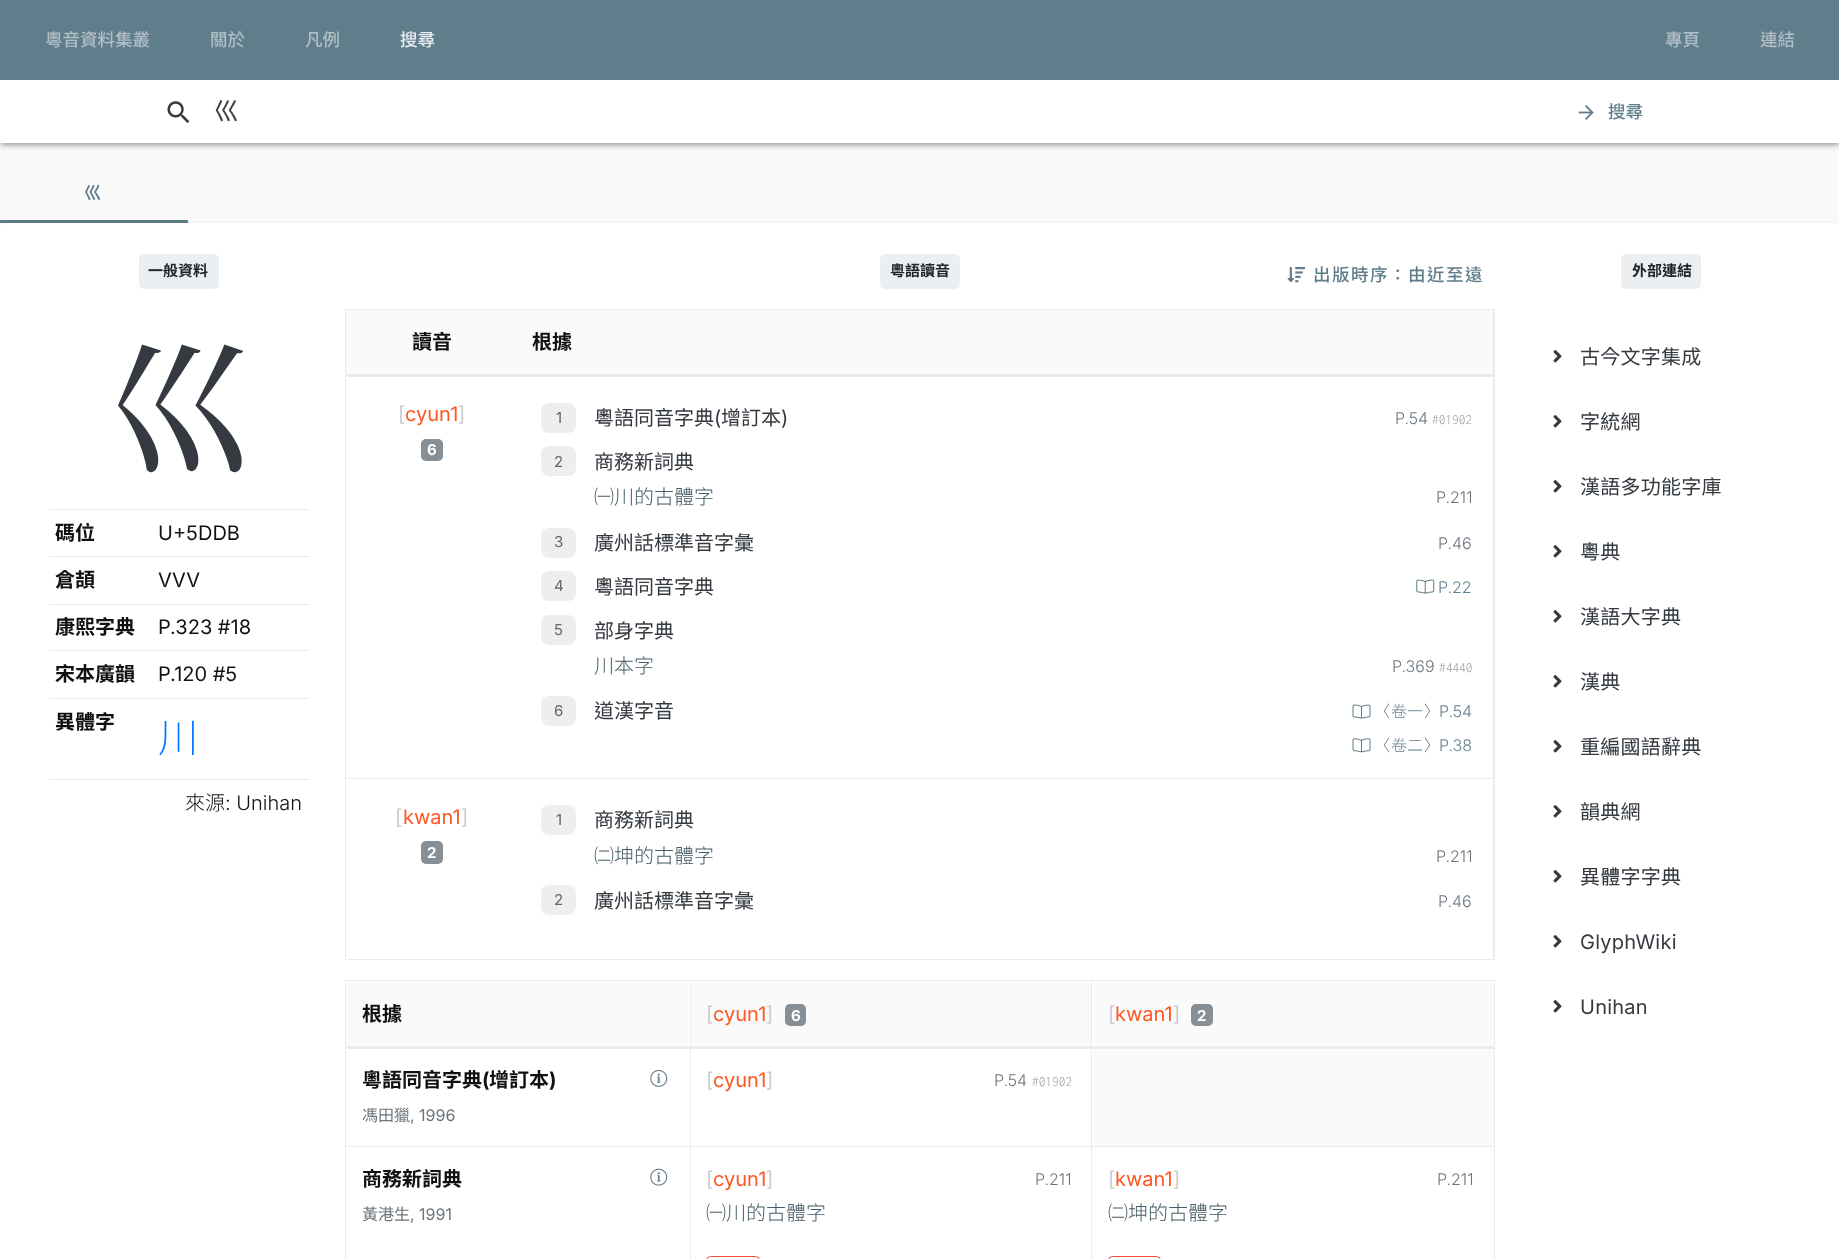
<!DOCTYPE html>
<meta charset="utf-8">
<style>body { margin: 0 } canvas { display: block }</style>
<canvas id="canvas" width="1839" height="1259"></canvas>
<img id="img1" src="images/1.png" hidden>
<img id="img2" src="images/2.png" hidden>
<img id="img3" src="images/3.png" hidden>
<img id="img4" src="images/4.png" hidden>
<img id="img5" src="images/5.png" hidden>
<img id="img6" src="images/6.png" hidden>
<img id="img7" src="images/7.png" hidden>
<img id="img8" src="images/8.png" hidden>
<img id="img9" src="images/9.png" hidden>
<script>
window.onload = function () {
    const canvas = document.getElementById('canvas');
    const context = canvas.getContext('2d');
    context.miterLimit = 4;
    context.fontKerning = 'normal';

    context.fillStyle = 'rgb(250, 250, 250)';
    context.fillRect(0, 0, 1839, 1259);
    context.fillStyle = 'rgba(0, 0, 0, 0.12)';
    context.filter = 'blur(5px)';
    context.beginPath();
    context.rect(0, 81, 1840, 63);
    context.fill();
    context.filter = 'none';
    context.fillStyle = 'rgba(0, 0, 0, 0.14)';
    context.filter = 'blur(2.5px)';
    context.beginPath();
    context.rect(0, 84, 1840, 62);
    context.fill();
    context.filter = 'none';
    context.fillStyle = 'rgba(0, 0, 0, 0.2)';
    context.filter = 'blur(2px)';
    context.beginPath();
    context.rect(3, 86, 1835, 58);
    context.fill();
    context.filter = 'none';
    context.fillStyle = 'rgb(96, 125, 139)';
    context.fillRect(0, 0, 1839, 80);
    context.fillStyle = 'rgb(255, 255, 255)';
    context.fillRect(0, 80, 1839, 63);
    context.drawImage(document.getElementById('img1'), 167, 101, 23, 22);
    context.drawImage(document.getElementById('img2'), 1578, 105, 16, 15);
    context.fillStyle = 'rgb(96, 125, 139)';
    context.fillRect(0, 220, 188, 3);
    context.fillStyle = 'rgba(0, 0, 0, 0.12)';
    context.filter = 'blur(2px)';
    context.beginPath();
    context.roundRect(0, 224, 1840, 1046, 5);
    context.fill();
    context.filter = 'none';
    context.fillStyle = 'rgb(255, 255, 255)';
    context.beginPath();
    context.roundRect(0, 223, 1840, 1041, 5);
    context.fill();
    context.fillStyle = 'rgb(236, 239, 241)';
    context.beginPath();
    context.roundRect(139, 254, 80, 35, 5);
    context.fill();
    context.fillStyle = 'rgb(233, 236, 239)';
    context.fillRect(49, 509, 260, 1);
    context.fillRect(49, 556, 260, 1);
    context.fillRect(49, 604, 260, 1);
    context.fillRect(49, 650, 260, 1);
    context.fillRect(49, 698, 260, 1);
    context.fillRect(49, 779, 260, 1);
    context.fillStyle = 'rgb(236, 239, 241)';
    context.beginPath();
    context.roundRect(880, 254, 80, 35, 5);
    context.fill();
    context.drawImage(document.getElementById('img3'), 1287, 267, 18, 16);
    context.strokeStyle = 'rgb(233, 236, 239)';
    context.strokeRect(345.5, 309.5, 1149, 650);
    context.fillStyle = 'rgb(233, 236, 239)';
    context.fillRect(1493, 310, 1, 649);
    context.fillStyle = 'rgb(250, 250, 250)';
    context.fillRect(346, 310, 1147, 64);
    context.fillStyle = 'rgb(233, 236, 239)';
    context.fillRect(345, 374, 1149, 3);
    context.fillStyle = 'rgb(134, 142, 150)';
    context.beginPath();
    context.roundRect(421, 439, 22, 22, 5);
    context.fill();
    context.fillStyle = 'rgb(238, 238, 238)';
    context.beginPath();
    context.roundRect(541, 403, 35, 30, 8);
    context.fill();
    context.beginPath();
    context.roundRect(541, 446, 35, 30, 8);
    context.fill();
    context.beginPath();
    context.roundRect(541, 528, 35, 30, 8);
    context.fill();
    context.beginPath();
    context.roundRect(541, 571, 35, 30, 8);
    context.fill();
    context.drawImage(document.getElementById('img4'), 1416, 579, 19, 15);
    context.beginPath();
    context.roundRect(541, 615, 35, 30, 8);
    context.fill();
    context.beginPath();
    context.roundRect(541, 696, 35, 30, 8);
    context.fill();
    context.drawImage(document.getElementById('img5'), 1352, 704, 19, 15);
    context.drawImage(document.getElementById('img6'), 1352, 738, 19, 15);
    context.fillStyle = 'rgb(134, 142, 150)';
    context.beginPath();
    context.roundRect(421, 841, 22, 23, 5);
    context.fill();
    context.fillStyle = 'rgb(233, 236, 239)';
    context.fillRect(346, 778, 1147, 1);
    context.fillStyle = 'rgb(238, 238, 238)';
    context.beginPath();
    context.roundRect(541, 805, 35, 30, 8);
    context.fill();
    context.beginPath();
    context.roundRect(541, 885, 35, 30, 8);
    context.fill();
    context.fillStyle = 'rgb(233, 236, 239)';
    context.fillRect(345, 980, 1150, 1);
    context.fillRect(1494, 980, 1, 279);
    context.fillRect(345, 980, 1, 279);
    context.fillStyle = 'rgb(250, 250, 250)';
    context.fillRect(348, 983, 341, 62);
    context.fillRect(691, 983, 400, 62);
    context.fillStyle = 'rgb(134, 142, 150)';
    context.beginPath();
    context.roundRect(785, 1004, 21, 22, 5);
    context.fill();
    context.fillStyle = 'rgb(250, 250, 250)';
    context.fillRect(1094, 983, 399, 62);
    context.fillRect(1093, 1049, 401, 99);
    context.fillStyle = 'rgb(233, 236, 239)';
    context.fillRect(1091, 1146, 404, 1);
    context.fillRect(1091, 1146, 1, 113);
    context.fillRect(690, 1146, 403, 1);
    context.fillRect(690, 1146, 1, 113);
    context.fillRect(345, 1146, 346, 1);
    context.fillRect(690, 980, 1, 168);
    context.fillRect(1091, 980, 1, 168);
    context.fillRect(345, 1046, 1150, 3);
    context.fillStyle = 'rgb(134, 142, 150)';
    context.beginPath();
    context.roundRect(1191, 1004, 22, 22, 5);
    context.fill();
    context.drawImage(document.getElementById('img7'), 650, 1070, 18, 17);
    context.drawImage(document.getElementById('img8'), 650, 1168, 18, 18);
    context.beginPath();
    context.roundRect(706.5, 1256.5, 53, 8, 4.5);
    context.strokeStyle = 'rgb(239, 72, 60)';
    context.stroke();
    context.beginPath();
    context.roundRect(1108.5, 1256.5, 52, 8, 4.5);
    context.stroke();
    context.fillStyle = 'rgb(236, 239, 241)';
    context.beginPath();
    context.roundRect(1621, 254, 80, 35, 5);
    context.fill();
    context.drawImage(document.getElementById('img9'), 1553, 350, 9, 13);
    context.drawImage(document.getElementById('img9'), 1553, 415, 9, 13);
    context.drawImage(document.getElementById('img9'), 1553, 480, 9, 13);
    context.drawImage(document.getElementById('img9'), 1553, 545, 9, 13);
    context.drawImage(document.getElementById('img9'), 1553, 610, 9, 13);
    context.drawImage(document.getElementById('img9'), 1553, 675, 9, 13);
    context.drawImage(document.getElementById('img9'), 1553, 740, 9, 13);
    context.drawImage(document.getElementById('img9'), 1553, 805, 9, 13);
    context.drawImage(document.getElementById('img9'), 1553, 870, 9, 13);
    context.drawImage(document.getElementById('img9'), 1553, 935, 9, 13);
    context.drawImage(document.getElementById('img9'), 1553, 1000, 9, 13);
    context.font = '500 17.5px Chiron Hei HK';
    context.fillStyle = 'rgb(176, 190, 197)';
    context.fillText('粵音資料集叢', 45, 46);
    context.fillText('關於', 210, 46);
    context.fillText('凡例', 305, 46);
    context.fillStyle = 'rgb(236, 239, 241)';
    context.fillText('搜尋', 400, 46);
    context.fillStyle = 'rgb(176, 190, 197)';
    context.fillText('專頁', 1665, 46);
    context.fillText('連結', 1760, 46);
    context.font = '25px Chiron Hei HK';
    context.fillStyle = 'rgb(67, 67, 67)';
    context.fillText('巛', 214, 120);
    context.font = '500 17.5px Chiron Hei HK';
    context.fillStyle = 'rgb(96, 125, 139)';
    context.fillText('搜尋', 1608, 118);
    context.letterSpacing = '1.5px';
    context.fillText('巛', 84, 199);
    context.letterSpacing = '0px';
    context.font = 'bold 15px Chiron Hei HK';
    context.fillStyle = 'rgb(33, 37, 41)';
    context.fillText('一般資料', 148, 276);
    context.font = '500 150px Chiron Sung HK';
    context.fillStyle = 'rgb(52, 58, 64)';
    context.fillText('巛', 103, 464);
    context.font = 'bold 20px Chiron Hei HK';
    context.fillStyle = 'rgb(17, 17, 17)';
    context.fillText('碼位', 55, 540);
    context.font = '20px Inter';
    context.fillText('U+5DDB', 158, 540);
    context.font = 'bold 20px Chiron Hei HK';
    context.fillText('倉頡', 55, 587);
    context.font = '20px Inter';
    context.fillText('VVV', 158, 587);
    context.font = 'bold 20px Chiron Hei HK';
    context.fillText('康熙字典', 55, 634);
    context.font = '20px Inter';
    context.fillText('P.323 #18', 158, 634);
    context.font = 'bold 20px Chiron Hei HK';
    context.fillText('宋本廣韻', 55, 681);
    context.font = '20px Inter';
    context.fillText('P.120 #5', 158, 681);
    context.font = 'bold 20px Chiron Hei HK';
    context.fillText('異體字', 55, 729);
    context.font = '300 40px Chiron Hei HK';
    context.fillStyle = 'rgb(0, 123, 255)';
    context.fillText('川', 158, 752);
    context.font = '300 20px "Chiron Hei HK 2"';
    context.fillStyle = 'rgb(17, 17, 17)';
    context.fillText('來源', 185, 810);
    context.font = '300 20px Inter';
    context.fillText(': Unihan', 225, 810);
    context.font = 'bold 15px Chiron Hei HK';
    context.fillStyle = 'rgb(33, 37, 41)';
    context.fillText('粵語讀音', 890, 276);
    context.letterSpacing = '1.5px';
    context.font = '500 17.5px Chiron Hei HK';
    context.fillStyle = 'rgb(96, 125, 139)';
    context.fillText('出版時序：由近至遠', 1313, 281);
    context.letterSpacing = '0px';
    context.font = 'bold 20px Chiron Hei HK';
    context.fillStyle = 'rgb(17, 17, 17)';
    context.fillText('讀音', 412, 349);
    context.fillText('根據', 532, 349);
    context.font = '20px Inter';
    context.fillStyle = 'rgb(204, 204, 204)';
    context.fillText('[', 398, 421);
    context.fillStyle = 'rgb(255, 87, 34)';
    context.fillText('cyun1', 405, 421);
    context.fillStyle = 'rgb(204, 204, 204)';
    context.fillText(']', 458, 421);
    context.font = 'bold 15px Inter';
    context.fillStyle = 'rgb(255, 255, 255)';
    context.fillText('6', 427, 455);
    context.font = '15px Inter';
    context.fillStyle = 'rgb(102, 102, 102)';
    context.fillText('1', 556, 423);
    context.font = '20px Chiron Hei HK';
    context.fillStyle = 'rgb(52, 58, 64)';
    context.fillText('粵語同音字典', 594, 425);
    context.font = '20px Inter';
    context.fillText('(', 714, 425);
    context.font = '20px Chiron Hei HK';
    context.fillText('增訂本', 721, 425);
    context.font = '20px Inter';
    context.fillText(')', 781, 425);
    context.font = '300 16px Inter';
    context.fillStyle = 'rgb(108, 117, 125)';
    context.fillText('P.54', 1395, 424);
    context.font = '300 14.5px Inconsolata';
    context.fillStyle = 'rgb(152, 158, 164)';
    context.fillText('#01902', 1432, 424);
    context.font = '15px Inter';
    context.fillStyle = 'rgb(102, 102, 102)';
    context.fillText('2', 554, 467);
    context.font = '20px Chiron Hei HK';
    context.fillStyle = 'rgb(52, 58, 64)';
    context.fillText('商務新詞典', 594, 469);
    context.font = '300 20px "Chiron Hei HK 2"';
    context.fillStyle = 'rgb(69, 90, 100)';
    context.fillText('㈠川的古體字', 594, 504);
    context.font = '300 16px Inter';
    context.fillStyle = 'rgb(108, 117, 125)';
    context.fillText('P.211', 1436, 503);
    context.font = '15px Inter';
    context.fillStyle = 'rgb(102, 102, 102)';
    context.fillText('3', 554, 547);
    context.font = '20px Chiron Hei HK';
    context.fillStyle = 'rgb(52, 58, 64)';
    context.fillText('廣州話標準音字彙', 594, 550);
    context.font = '300 16px Inter';
    context.fillStyle = 'rgb(108, 117, 125)';
    context.fillText('P.46', 1438, 549);
    context.font = '15px Inter';
    context.fillStyle = 'rgb(102, 102, 102)';
    context.fillText('4', 554, 591);
    context.font = '20px Chiron Hei HK';
    context.fillStyle = 'rgb(52, 58, 64)';
    context.fillText('粵語同音字典', 594, 594);
    context.font = '300 16px Inter';
    context.fillStyle = 'rgb(96, 125, 139)';
    context.fillText('P.22', 1438, 593);
    context.font = '15px Inter';
    context.fillStyle = 'rgb(102, 102, 102)';
    context.fillText('5', 554, 635);
    context.font = '20px Chiron Hei HK';
    context.fillStyle = 'rgb(52, 58, 64)';
    context.fillText('部身字典', 594, 638);
    context.font = '300 20px "Chiron Hei HK 2"';
    context.fillStyle = 'rgb(69, 90, 100)';
    context.fillText('川本字', 594, 673);
    context.font = '300 16px Inter';
    context.fillStyle = 'rgb(108, 117, 125)';
    context.fillText('P.369', 1392, 672);
    context.font = '300 14.5px Inconsolata';
    context.fillStyle = 'rgb(152, 158, 164)';
    context.fillText('#4440', 1439, 672);
    context.font = '15px Inter';
    context.fillStyle = 'rgb(102, 102, 102)';
    context.fillText('6', 554, 716);
    context.font = '20px Chiron Hei HK';
    context.fillStyle = 'rgb(52, 58, 64)';
    context.fillText('道漢字音', 594, 718);
    context.font = '300 16px "Chiron Hei HK 2"';
    context.fillStyle = 'rgb(96, 125, 139)';
    context.fillText('〈卷一〉', 1375, 717);
    context.font = '300 16px Inter';
    context.fillText('P.54', 1439, 717);
    context.font = '300 16px "Chiron Hei HK 2"';
    context.fillText('〈卷二〉', 1375, 751);
    context.font = '300 16px Inter';
    context.fillText('P.38', 1439, 751);
    context.font = '20px Inter';
    context.fillStyle = 'rgb(204, 204, 204)';
    context.fillText('[', 395, 824);
    context.fillStyle = 'rgb(255, 87, 34)';
    context.fillText('kwan1', 403, 824);
    context.fillStyle = 'rgb(204, 204, 204)';
    context.fillText(']', 461, 824);
    context.font = 'bold 15px Inter';
    context.fillStyle = 'rgb(255, 255, 255)';
    context.fillText('2', 427, 858);
    context.font = '15px Inter';
    context.fillStyle = 'rgb(102, 102, 102)';
    context.fillText('1', 556, 825);
    context.font = '20px Chiron Hei HK';
    context.fillStyle = 'rgb(52, 58, 64)';
    context.fillText('商務新詞典', 594, 827);
    context.font = '300 20px "Chiron Hei HK 2"';
    context.fillStyle = 'rgb(69, 90, 100)';
    context.fillText('㈡坤的古體字', 594, 863);
    context.font = '300 16px Inter';
    context.fillStyle = 'rgb(108, 117, 125)';
    context.fillText('P.211', 1436, 862);
    context.font = '15px Inter';
    context.fillStyle = 'rgb(102, 102, 102)';
    context.fillText('2', 554, 905);
    context.font = '20px Chiron Hei HK';
    context.fillStyle = 'rgb(52, 58, 64)';
    context.fillText('廣州話標準音字彙', 594, 908);
    context.font = '300 16px Inter';
    context.fillStyle = 'rgb(108, 117, 125)';
    context.fillText('P.46', 1438, 907);
    context.font = 'bold 20px Chiron Hei HK';
    context.fillStyle = 'rgb(17, 17, 17)';
    context.fillText('根據', 362, 1021);
    context.font = '20px Inter';
    context.fillStyle = 'rgb(204, 204, 204)';
    context.fillText('[', 706, 1021);
    context.fillStyle = 'rgb(255, 87, 34)';
    context.fillText('cyun1', 713, 1021);
    context.fillStyle = 'rgb(204, 204, 204)';
    context.fillText(']', 766, 1021);
    context.font = 'bold 15px Inter';
    context.fillStyle = 'rgb(255, 255, 255)';
    context.fillText('6', 791, 1021);
    context.font = '20px Inter';
    context.fillStyle = 'rgb(204, 204, 204)';
    context.fillText('[', 1108, 1021);
    context.fillStyle = 'rgb(255, 87, 34)';
    context.fillText('kwan1', 1115, 1021);
    context.fillStyle = 'rgb(204, 204, 204)';
    context.fillText(']', 1173, 1021);
    context.font = 'bold 15px Inter';
    context.fillStyle = 'rgb(255, 255, 255)';
    context.fillText('2', 1197, 1021);
    context.font = 'bold 20px Chiron Hei HK';
    context.fillStyle = 'rgb(17, 17, 17)';
    context.fillText('粵語同音字典', 362, 1087);
    context.font = 'bold 20px Inter';
    context.fillText('(', 482, 1087);
    context.font = 'bold 20px Chiron Hei HK';
    context.fillText('增訂本', 489, 1087);
    context.font = 'bold 20px Inter';
    context.fillText(')', 549, 1087);
    context.font = '16px Chiron Hei HK';
    context.fillStyle = 'rgb(108, 117, 125)';
    context.fillText('馮田獵', 362, 1121);
    context.font = '16px Inter';
    context.fillText(', 1996', 410, 1121);
    context.font = '20px Inter';
    context.fillStyle = 'rgb(204, 204, 204)';
    context.fillText('[', 706, 1087);
    context.fillStyle = 'rgb(255, 87, 34)';
    context.fillText('cyun1', 713, 1087);
    context.fillStyle = 'rgb(204, 204, 204)';
    context.fillText(']', 766, 1087);
    context.font = '300 16px Inter';
    context.fillStyle = 'rgb(108, 117, 125)';
    context.fillText('P.54', 994, 1086);
    context.font = '300 14.5px Inconsolata';
    context.fillStyle = 'rgb(152, 158, 164)';
    context.fillText('#01902', 1032, 1086);
    context.font = 'bold 20px Chiron Hei HK';
    context.fillStyle = 'rgb(17, 17, 17)';
    context.fillText('商務新詞典', 362, 1186);
    context.font = '16px Chiron Hei HK';
    context.fillStyle = 'rgb(108, 117, 125)';
    context.fillText('黃港生', 362, 1220);
    context.font = '16px Inter';
    context.fillText(', 1991', 410, 1220);
    context.font = '20px Inter';
    context.fillStyle = 'rgb(204, 204, 204)';
    context.fillText('[', 706, 1186);
    context.fillStyle = 'rgb(255, 87, 34)';
    context.fillText('cyun1', 713, 1186);
    context.fillStyle = 'rgb(204, 204, 204)';
    context.fillText(']', 766, 1186);
    context.font = '300 16px Inter';
    context.fillStyle = 'rgb(108, 117, 125)';
    context.fillText('P.211', 1035, 1185);
    context.font = '300 20px "Chiron Hei HK 2"';
    context.fillStyle = 'rgb(69, 90, 100)';
    context.fillText('㈠川的古體字', 706, 1220);
    context.font = '20px Inter';
    context.fillStyle = 'rgb(204, 204, 204)';
    context.fillText('[', 1108, 1186);
    context.fillStyle = 'rgb(255, 87, 34)';
    context.fillText('kwan1', 1115, 1186);
    context.fillStyle = 'rgb(204, 204, 204)';
    context.fillText(']', 1173, 1186);
    context.font = '300 16px Inter';
    context.fillStyle = 'rgb(108, 117, 125)';
    context.fillText('P.211', 1437, 1185);
    context.font = '300 20px "Chiron Hei HK 2"';
    context.fillStyle = 'rgb(69, 90, 100)';
    context.fillText('㈡坤的古體字', 1108, 1220);
    context.font = 'bold 15px Chiron Hei HK';
    context.fillStyle = 'rgb(33, 37, 41)';
    context.fillText('外部連結', 1632, 276);
    context.letterSpacing = '0.25px';
    context.font = '20px Chiron Hei HK';
    context.fillStyle = 'rgb(52, 58, 64)';
    context.fillText('古今文字集成', 1580, 364);
    context.fillText('字統網', 1580, 429);
    context.fillText('漢語多功能字庫', 1580, 494);
    context.fillText('粵典', 1580, 559);
    context.fillText('漢語大字典', 1580, 624);
    context.fillText('漢典', 1580, 689);
    context.fillText('重編國語辭典', 1580, 754);
    context.fillText('韻典網', 1580, 819);
    context.fillText('異體字字典', 1580, 884);
    context.font = '20px Inter';
    context.fillText('GlyphWiki', 1580, 949);
    context.fillText('Unihan', 1580, 1014);
};
</script>
